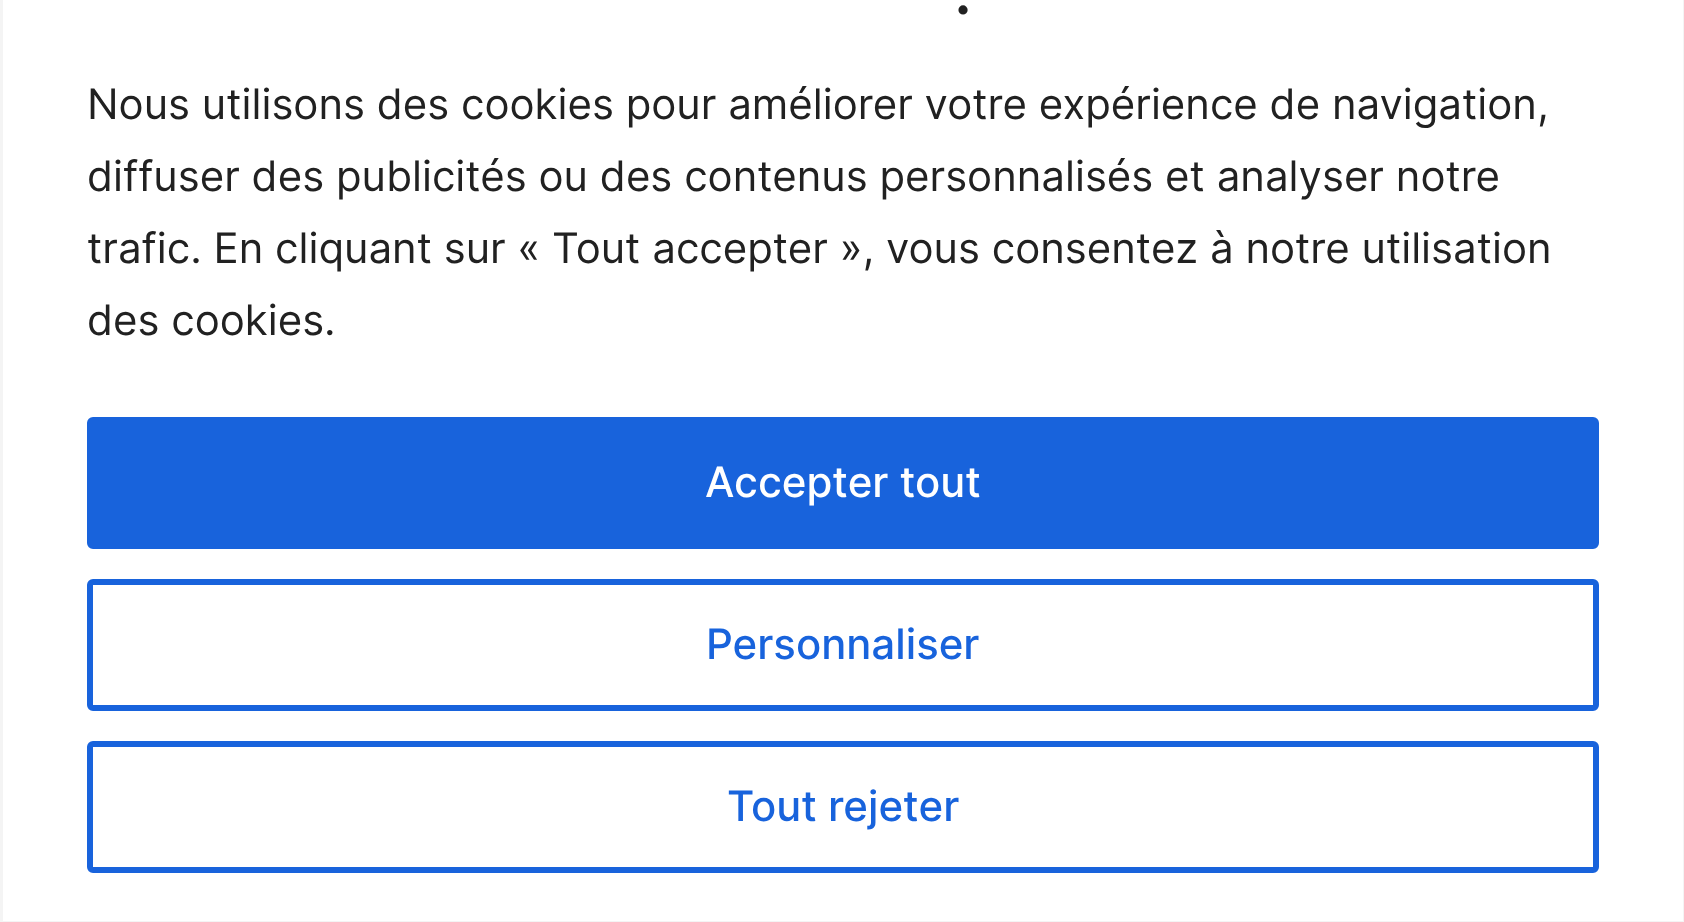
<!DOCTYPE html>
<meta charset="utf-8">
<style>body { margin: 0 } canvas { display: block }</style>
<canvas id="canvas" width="1684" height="922"></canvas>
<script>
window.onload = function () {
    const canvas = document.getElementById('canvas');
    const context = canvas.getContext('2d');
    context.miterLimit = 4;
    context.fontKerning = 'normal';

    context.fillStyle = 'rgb(255, 255, 255)';
    context.fillRect(0, 0, 1684, 922);
    context.strokeStyle = 'rgb(244, 244, 244)';
    context.lineWidth = 3;
    context.strokeRect(1.5, -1.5, 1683, 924);
    context.fillStyle = 'rgb(24, 99, 220)';
    context.beginPath();
    context.roundRect(90, 420, 1506, 126, 3);
    context.fill();
    context.strokeStyle = 'rgb(24, 99, 220)';
    context.lineWidth = 6;
    context.stroke();
    context.beginPath();
    context.roundRect(90, 582, 1506, 126, 3);
    context.stroke();
    context.beginPath();
    context.roundRect(90, 744, 1506, 126, 3);
    context.stroke();
    context.font = 'bold 54px Inter';
    context.fillStyle = 'rgb(33, 33, 33)';
    context.fillText('.', 955, 14);
    context.font = '42px Inter';
    context.fillText('Nous utilisons des cookies pour améliorer votre expérience de navigation,', 87, 119);
    context.fillText('diffuser des publicités ou des contenus personnalisés et analyser notre', 87, 191);
    context.fillText('trafic. En cliquant sur « Tout accepter », vous consentez à notre utilisation', 87, 263);
    context.fillText('des cookies.', 87, 335);
    context.font = '500 42px Inter';
    context.fillStyle = 'rgb(255, 255, 255)';
    context.fillText('Accepter tout', 705, 497);
    context.fillStyle = 'rgb(24, 99, 220)';
    context.fillText('Personnaliser', 706, 659);
    context.fillText('Tout rejeter', 727, 821);
};
</script>
